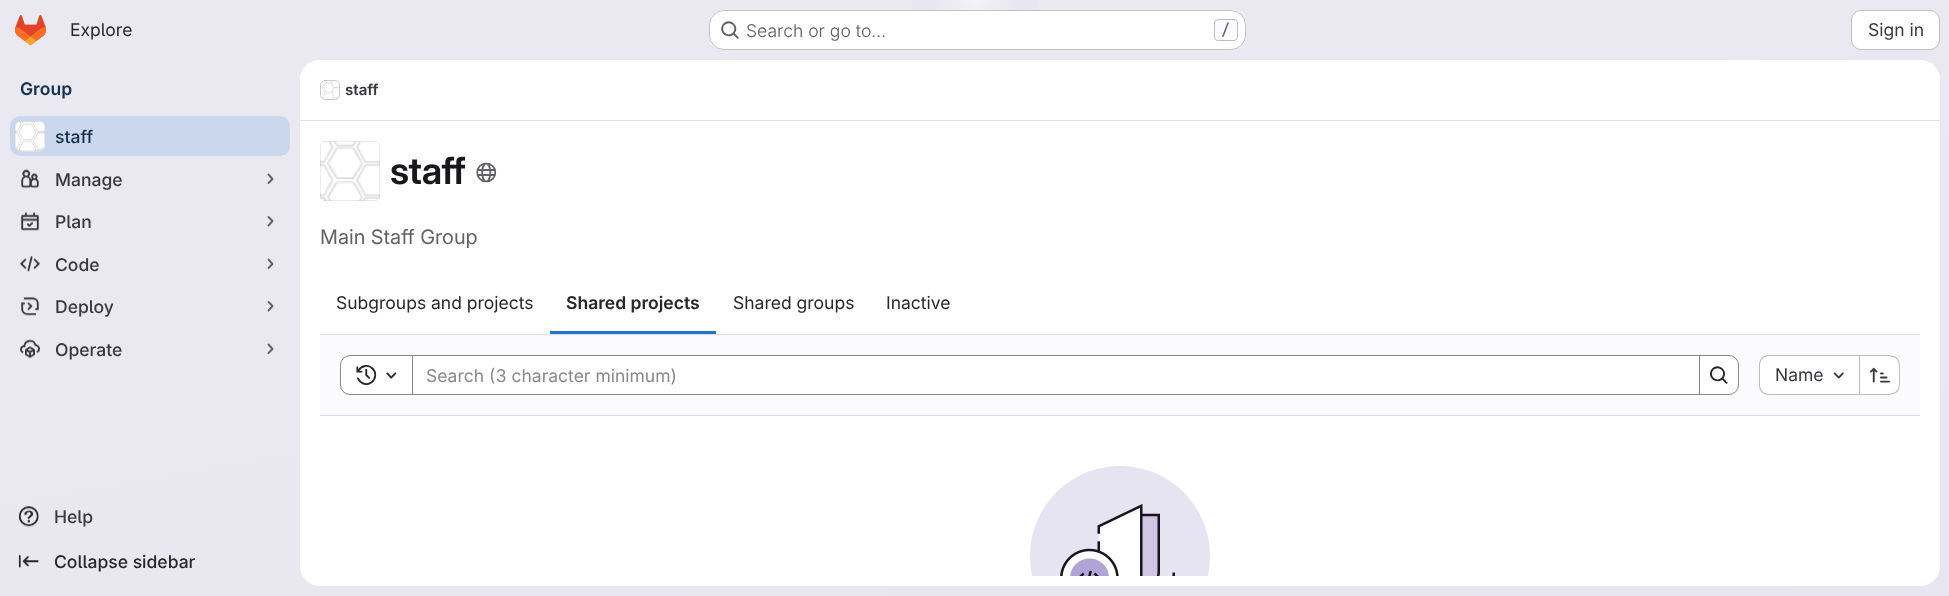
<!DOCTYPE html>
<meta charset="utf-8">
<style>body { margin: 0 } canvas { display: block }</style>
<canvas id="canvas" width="1949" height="596"></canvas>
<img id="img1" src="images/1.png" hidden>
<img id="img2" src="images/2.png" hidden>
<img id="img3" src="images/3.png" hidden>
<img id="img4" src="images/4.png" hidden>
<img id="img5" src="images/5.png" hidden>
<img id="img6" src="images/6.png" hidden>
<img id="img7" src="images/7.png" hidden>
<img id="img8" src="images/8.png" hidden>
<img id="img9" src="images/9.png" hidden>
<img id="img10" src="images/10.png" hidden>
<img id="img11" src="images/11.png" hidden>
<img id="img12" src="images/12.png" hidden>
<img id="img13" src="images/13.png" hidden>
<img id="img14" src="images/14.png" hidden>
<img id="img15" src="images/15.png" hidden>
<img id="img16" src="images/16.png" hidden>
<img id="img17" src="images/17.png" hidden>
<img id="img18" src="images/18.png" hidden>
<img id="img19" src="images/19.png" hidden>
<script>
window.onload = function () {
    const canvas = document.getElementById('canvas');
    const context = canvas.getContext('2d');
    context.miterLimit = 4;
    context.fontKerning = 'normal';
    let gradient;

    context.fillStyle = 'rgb(255, 255, 255)';
    context.fillRect(0, 0, 1949, 596);
    gradient = context.createLinearGradient(1055, 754, 895, -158);
    gradient.addColorStop(0, 'rgb(232, 230, 240)');
    gradient.addColorStop(0.7, 'rgb(234, 233, 242)');
    context.fillStyle = gradient;
    context.fillRect(0, 0, 1949, 596);
    gradient = context.createRadialGradient(975, 0, 0, 975, 0, 975);
    gradient.addColorStop(0, 'rgb(228, 226, 237)');
    gradient.addColorStop(0.09, 'rgba(228, 226, 237, 0)');
    context.fillStyle = gradient;
    context.beginPath();
    context.rect(912, 0, 126, 39);
    context.save();
    context.clip();
    context.scale(1, 596 / 975);
    context.fillRect(0, 0, 1949, 975);
    context.restore();
    gradient = context.createRadialGradient(975, 0, 0, 975, 0, 975);
    gradient.addColorStop(0, 'rgb(228, 226, 236)');
    gradient.addColorStop(0.06, 'rgba(228, 226, 236, 0)');
    context.fillStyle = gradient;
    context.beginPath();
    context.rect(954, 2, 42, 8);
    context.save();
    context.clip();
    context.scale(1, 596 / 975);
    context.fillRect(0, 0, 1949, 975);
    context.restore();
    gradient = context.createRadialGradient(975, 0, 0, 975, 0, 1143);
    gradient.addColorStop(0, 'rgba(255, 255, 255, 0.6)');
    gradient.addColorStop(0.04, 'rgba(255, 255, 255, 0)');
    context.fillStyle = gradient;
    context.fillRect(936, 0, 78, 10);
    context.drawImage(document.getElementById('img1'), 15, 15, 31, 30);
    context.fillStyle = 'rgb(255, 255, 255)';
    context.beginPath();
    context.roundRect(709, 10, 537, 40, 15);
    context.fill();
    context.beginPath();
    context.roundRect(709.5, 10.5, 536, 39, 14.5);
    context.strokeStyle = 'rgba(5, 5, 6, 0.24)';
    context.stroke();
    context.drawImage(document.getElementById('img2'), 721, 21, 18, 18);
    context.fillStyle = 'rgb(251, 250, 253)';
    context.beginPath();
    context.roundRect(1214.5, 19.5, 23, 21, 3.5);
    context.fill();
    context.strokeStyle = 'rgb(191, 191, 195)';
    context.stroke();
    context.fillStyle = 'rgb(255, 255, 255)';
    context.beginPath();
    context.roundRect(1851.5, 10.5, 88, 39, 9.5);
    context.fill();
    context.stroke();
    context.fillStyle = 'rgb(202, 215, 236)';
    context.beginPath();
    context.roundRect(10, 116, 280, 40, 10);
    context.fill();
    context.drawImage(document.getElementById('img3'), 15, 121, 30, 31);
    context.beginPath();
    context.roundRect(15.5, 121.5, 29, 29, 4.5);
    context.strokeStyle = 'rgba(5, 5, 6, 0.08)';
    context.stroke();
    context.drawImage(document.getElementById('img4'), 21, 169, 18, 20);
    context.beginPath();
    context.moveTo(268.5, 174.5);
    context.lineTo(272.5, 179);
    context.lineTo(268.5, 183);
    context.strokeStyle = 'rgb(98, 97, 104)';
    context.lineWidth = 1.9;
    context.lineCap = 'round';
    context.lineJoin = 'round';
    context.stroke();
    context.drawImage(document.getElementById('img5'), 21, 212, 18, 19);
    context.beginPath();
    context.moveTo(268.5, 217);
    context.lineTo(272.5, 221);
    context.lineTo(268.5, 225.5);
    context.stroke();
    context.drawImage(document.getElementById('img6'), 20, 256, 20, 16);
    context.beginPath();
    context.moveTo(268.5, 259.5);
    context.lineTo(272.5, 264);
    context.lineTo(268.5, 268);
    context.stroke();
    context.drawImage(document.getElementById('img7'), 21, 297, 18, 19);
    context.beginPath();
    context.moveTo(268.5, 302);
    context.lineTo(272.5, 306);
    context.lineTo(268.5, 310.5);
    context.stroke();
    context.drawImage(document.getElementById('img8'), 20, 339, 20, 20);
    context.beginPath();
    context.moveTo(268.5, 344.5);
    context.lineTo(272.5, 349);
    context.lineTo(268.5, 353);
    context.stroke();
    context.drawImage(document.getElementById('img9'), 18, 506, 21, 21);
    context.drawImage(document.getElementById('img10'), 18, 554, 21, 15);
    context.fillStyle = 'rgb(255, 255, 255)';
    context.beginPath();
    context.roundRect(300, 60, 1640, 526, 20);
    context.fill();
    context.beginPath();
    context.roundRect(300, 60, 1640, 61, [20, 20, 0, 0]);
    context.fill();
    context.fillStyle = 'rgb(225, 223, 236)';
    context.fillRect(300, 120, 1640, 1);
    context.beginPath();
    context.roundRect(320.5, 80.5, 19, 19, 4.5);
    context.strokeStyle = 'rgb(220, 220, 222)';
    context.lineWidth = 1;
    context.lineJoin = 'miter';
    context.stroke();
    context.drawImage(document.getElementById('img11'), 321, 81, 18, 18);
    context.beginPath();
    context.roundRect(320.5, 80.5, 19, 19, 4.5);
    context.strokeStyle = 'rgba(5, 5, 6, 0.08)';
    context.stroke();
    context.drawImage(document.getElementById('img12'), 320, 141, 60, 60);
    context.beginPath();
    context.roundRect(320.5, 141.5, 59, 59, 4.5);
    context.stroke();
    context.drawImage(document.getElementById('img13'), 476, 162, 21, 21);
    context.fillStyle = 'rgb(220, 220, 222)';
    context.fillRect(320, 415, 1600, 1);
    context.fillStyle = 'rgb(31, 117, 203)';
    context.fillRect(550, 331, 166, 3);
    context.fillStyle = 'rgb(251, 250, 253)';
    context.fillRect(320, 335, 1600, 80);
    context.fillStyle = 'rgb(220, 220, 222)';
    context.fillRect(320, 334, 1600, 1);
    context.fillStyle = 'rgb(255, 255, 255)';
    context.fillRect(413, 356, 1286, 38);
    context.strokeStyle = 'rgb(137, 136, 141)';
    context.strokeRect(411.5, 355.5, 1288, 39);
    context.beginPath();
    context.roundRect(340.5, 355.5, 72, 39, [9.5, 0, 0, 9.5]);
    context.fill();
    context.stroke();
    context.drawImage(document.getElementById('img14'), 356, 365, 21, 20);
    context.drawImage(document.getElementById('img15'), 386, 372, 11, 7);
    context.beginPath();
    context.roundRect(1699.5, 355.5, 39, 39, [0, 9.5, 9.5, 0]);
    context.fill();
    context.stroke();
    context.drawImage(document.getElementById('img16'), 1710, 366, 18, 18);
    context.beginPath();
    context.roundRect(1760, 356, 99, 38, [9, 0, 0, 9]);
    context.fill();
    context.fillStyle = 'rgb(191, 191, 195)';
    context.beginPath();
    context.moveTo(1769, 355);
    context.lineTo(1859, 355);
    context.lineTo(1859, 395);
    context.lineTo(1769, 395);
    context.bezierCurveTo(1763, 395, 1759, 391, 1759, 385);
    context.lineTo(1759, 365);
    context.bezierCurveTo(1759, 359, 1763, 355, 1769, 355);
    context.closePath();
    context.moveTo(1769, 356);
    context.lineTo(1859, 356);
    context.lineTo(1859, 394);
    context.lineTo(1769, 394);
    context.bezierCurveTo(1764, 394, 1760, 390, 1760, 385);
    context.lineTo(1760, 365);
    context.bezierCurveTo(1760, 360, 1764, 356, 1769, 356);
    context.closePath();
    context.fill('evenodd');
    context.drawImage(document.getElementById('img17'), 1833, 372, 11, 7);
    context.fillStyle = 'rgb(255, 255, 255)';
    context.beginPath();
    context.roundRect(1860, 356, 39, 38, [0, 9, 9, 0]);
    context.fill();
    context.fillStyle = 'rgb(191, 191, 195)';
    context.beginPath();
    context.moveTo(1860, 355);
    context.lineTo(1885, 355);
    context.bezierCurveTo(1901, 355, 1900, 361, 1900, 375);
    context.bezierCurveTo(1900, 389, 1901, 395, 1885, 395);
    context.lineTo(1860, 395);
    context.closePath();
    context.moveTo(1860, 356);
    context.lineTo(1885, 356);
    context.bezierCurveTo(1900, 356, 1899, 362, 1899, 375);
    context.bezierCurveTo(1899, 388, 1900, 394, 1885, 394);
    context.lineTo(1860, 394);
    context.closePath();
    context.fill('evenodd');
    context.fillRect(1859, 355, 1, 40);
    context.drawImage(document.getElementById('img18'), 1870, 367, 20, 16);
    context.drawImage(document.getElementById('img19'), 1030, 466, 180, 110);
    context.font = '17.5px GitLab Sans';
    context.fillStyle = 'rgb(40, 39, 45)';
    context.fillText('Explore', 70, 36);
    context.font = '300 17.5px GitLab Sans';
    context.fillStyle = 'rgb(98, 97, 104)';
    context.fillText('Search or go to…', 746, 37);
    context.font = '500 15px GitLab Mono';
    context.fillText('/', 1221, 35);
    context.font = '17.5px GitLab Sans';
    context.fillStyle = 'rgb(58, 56, 63)';
    context.fillText('Sign in', 1868, 36);
    context.font = '600 17.5px "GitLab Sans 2"';
    context.fillStyle = 'rgb(24, 51, 78)';
    context.fillText('Group', 20, 95);
    context.font = '500 17.5px GitLab Sans';
    context.fillText('staff', 55, 143);
    context.fillStyle = 'rgb(58, 56, 63)';
    context.fillText('Manage', 55, 186);
    context.fillText('Plan', 55, 228);
    context.fillText('Code', 55, 271);
    context.fillText('Deploy', 55, 313);
    context.fillText('Operate', 55, 356);
    context.fillText('Help', 54, 523);
    context.fillStyle = 'rgb(40, 39, 45)';
    context.fillText('Collapse sidebar', 54, 568);
    context.font = '600 15px "GitLab Sans 2"';
    context.fillStyle = 'rgb(58, 56, 63)';
    context.fillText('staff', 345, 95);
    context.letterSpacing = '-0.5px';
    context.font = '600 37.5px GitLab Sans';
    context.fillStyle = 'rgb(24, 23, 29)';
    context.fillText('staff', 390, 184);
    context.letterSpacing = '0px';
    context.font = '20px "GitLab Sans 2"';
    context.fillStyle = 'rgb(98, 97, 104)';
    context.fillText('Main Staff Group', 320, 244);
    context.font = '17.5px GitLab Sans';
    context.fillStyle = 'rgb(40, 39, 45)';
    context.fillText('Subgroups and projects', 336, 309);
    context.font = '600 17.5px "GitLab Sans 2"';
    context.fillText('Shared projects', 566, 309);
    context.font = '17.5px GitLab Sans';
    context.fillText('Shared groups', 733, 309);
    context.fillText('Inactive', 886, 309);
    context.fillStyle = 'rgb(137, 136, 141)';
    context.fillText('Search (3 character minimum)', 426, 382);
    context.fillStyle = 'rgb(58, 56, 63)';
    context.fillText('Name', 1775, 381);
};
</script>
